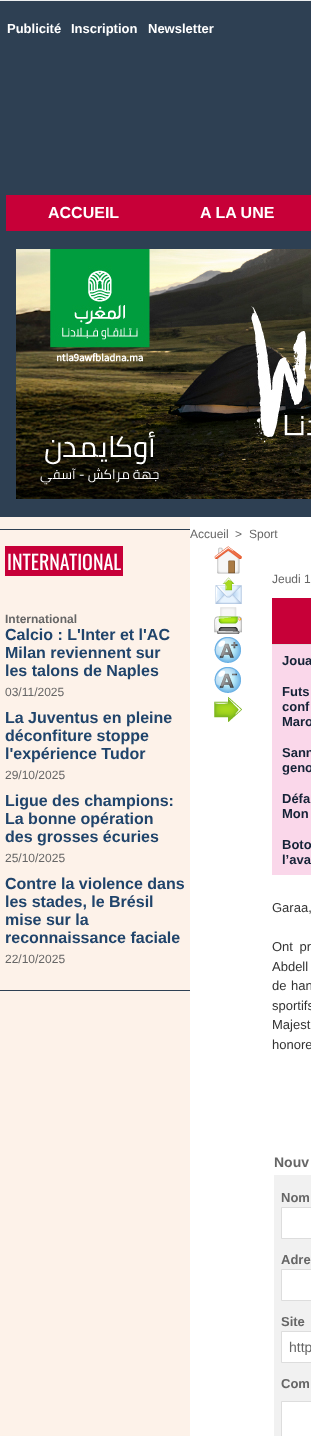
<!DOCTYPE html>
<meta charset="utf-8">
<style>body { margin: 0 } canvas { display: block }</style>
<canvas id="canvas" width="311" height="1436"></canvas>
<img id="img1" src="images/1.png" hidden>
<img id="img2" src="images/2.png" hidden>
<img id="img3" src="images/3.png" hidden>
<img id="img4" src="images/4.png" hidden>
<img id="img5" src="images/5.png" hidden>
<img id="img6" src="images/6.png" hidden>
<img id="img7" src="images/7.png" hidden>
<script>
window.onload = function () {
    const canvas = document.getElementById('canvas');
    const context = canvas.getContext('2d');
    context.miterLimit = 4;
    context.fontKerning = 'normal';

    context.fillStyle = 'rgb(237, 239, 240)';
    context.fillRect(0, 0, 311, 1436);
    context.fillStyle = 'rgb(46, 64, 83)';
    context.fillRect(0, 1, 311, 516);
    context.fillStyle = 'rgb(199, 0, 56)';
    context.fillRect(6, 195, 305, 36);
    context.drawImage(document.getElementById('img1'), 16, 249, 295, 250);
    context.fillStyle = 'rgb(253, 242, 233)';
    context.fillRect(0, 517, 190, 919);
    context.fillStyle = 'rgb(46, 64, 83)';
    context.fillRect(0, 529, 190, 1);
    context.fillStyle = 'rgb(199, 0, 56)';
    context.fillRect(5, 546, 118, 30);
    context.fillStyle = 'rgb(46, 64, 83)';
    context.fillRect(0, 990, 190, 1);
    context.fillStyle = 'rgb(255, 255, 255)';
    context.fillRect(190, 517, 121, 919);
    context.drawImage(document.getElementById('img2'), 214, 546, 28, 28);
    context.drawImage(document.getElementById('img3'), 215, 577, 27, 27);
    context.drawImage(document.getElementById('img4'), 214, 607, 28, 27);
    context.drawImage(document.getElementById('img5'), 214, 637, 27, 26);
    context.drawImage(document.getElementById('img6'), 214, 667, 27, 26);
    context.drawImage(document.getElementById('img7'), 214, 697, 28, 25);
    context.fillStyle = 'rgb(199, 0, 56)';
    context.fillRect(272, 598, 39, 46);
    context.fillStyle = 'rgb(221, 221, 221)';
    context.fillRect(272, 644, 39, 1);
    context.fillStyle = 'rgb(250, 215, 234)';
    context.fillRect(272, 645, 39, 230);
    context.fillStyle = 'rgb(241, 241, 241)';
    context.fillRect(274, 1175, 37, 261);
    context.fillStyle = 'rgb(255, 255, 255)';
    context.beginPath();
    context.rect(281.5, 1207.5, 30, 31);
    context.fill();
    context.strokeStyle = 'rgb(221, 221, 221)';
    context.stroke();
    context.beginPath();
    context.rect(281.5, 1269.5, 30, 31);
    context.fill();
    context.stroke();
    context.beginPath();
    context.rect(281.5, 1331.5, 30, 31);
    context.fill();
    context.stroke();
    context.beginPath();
    context.rect(281.5, 1401.5, 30, 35);
    context.fill();
    context.stroke();
    context.font = 'bold 13px Liberation Sans';
    context.fillText('Publicité', 7, 33);
    context.fillText('Inscription', 71, 33);
    context.fillText('Newsletter', 148, 33);
    context.font = 'bold 16px Liberation Sans';
    context.fillText('ACCUEIL', 48, 218);
    context.fillText('A LA UNE', 200, 218);
    context.font = '20px Oswald';
    context.fillText('INTERNATIONAL', 7, 570);
    context.font = 'bold 12px Liberation Sans';
    context.fillStyle = 'rgb(102, 102, 102)';
    context.fillText('International', 5, 623);
    context.font = 'bold 16px Liberation Sans';
    context.fillStyle = 'rgb(32, 68, 107)';
    context.fillText('Calcio : L\'Inter et l\'AC', 5, 640);
    context.fillText('Milan reviennent sur', 5, 658);
    context.fillText('les talons de Naples', 5, 676);
    context.font = '12px Liberation Sans';
    context.fillStyle = 'rgb(102, 102, 102)';
    context.fillText('03/11/2025', 5, 696);
    context.font = 'bold 16px Liberation Sans';
    context.fillStyle = 'rgb(32, 68, 107)';
    context.fillText('La Juventus en pleine', 5, 723);
    context.fillText('déconfiture stoppe', 5, 741);
    context.fillText('l\'expérience Tudor', 5, 759);
    context.font = '12px Liberation Sans';
    context.fillStyle = 'rgb(102, 102, 102)';
    context.fillText('29/10/2025', 5, 779);
    context.font = 'bold 16px Liberation Sans';
    context.fillStyle = 'rgb(32, 68, 107)';
    context.fillText('Ligue des champions:', 5, 806);
    context.fillText('La bonne opération', 5, 824);
    context.fillText('des grosses écuries', 5, 842);
    context.font = '12px Liberation Sans';
    context.fillStyle = 'rgb(102, 102, 102)';
    context.fillText('25/10/2025', 5, 862);
    context.font = 'bold 16px Liberation Sans';
    context.fillStyle = 'rgb(32, 68, 107)';
    context.fillText('Contre la violence dans', 5, 889);
    context.fillText('les stades, le Brésil', 5, 907);
    context.fillText('mise sur la', 5, 925);
    context.fillText('reconnaissance faciale', 5, 943);
    context.font = '12px Liberation Sans';
    context.fillStyle = 'rgb(102, 102, 102)';
    context.fillText('22/10/2025', 5, 963);
    context.fillText('Accueil', 190, 538);
    context.fillText('>', 235, 538);
    context.fillText('Sport', 249, 538);
    context.fillText('Jeudi 1', 272, 583);
    context.font = 'bold 13px Liberation Sans';
    context.fillStyle = 'rgb(20, 34, 54)';
    context.fillText('Joua', 282, 665);
    context.fillText('Futs', 282, 696);
    context.fillText('conf', 282, 711);
    context.fillText('Maro', 282, 726);
    context.fillText('Sann', 282, 757);
    context.fillText('geno', 282, 772);
    context.fillText('Défa', 282, 803);
    context.fillText('Mon', 282, 818);
    context.fillText('Boto', 282, 849);
    context.fillText('l’ava', 282, 864);
    context.font = '13px Liberation Sans';
    context.fillStyle = 'rgb(51, 51, 51)';
    context.fillText('Garaa,', 272, 912);
    context.wordSpacing = '3px';
    context.fillText('Ont pr', 272, 951);
    context.wordSpacing = '1px';
    context.fillText('Abdell', 272, 971);
    context.fillText('de han', 272, 990);
    context.wordSpacing = '3px';
    context.fillText('sportifs', 272, 1010);
    context.wordSpacing = '1px';
    context.fillText('Majest', 272, 1029);
    context.wordSpacing = '0px';
    context.fillText('honore', 272, 1049);
    context.font = 'bold 14px Liberation Sans';
    context.fillStyle = 'rgb(102, 102, 102)';
    context.fillText('Nouv', 274, 1167);
    context.font = 'bold 13px Liberation Sans';
    context.fillText('Nom', 281, 1202);
    context.fillText('Adre', 281, 1264);
    context.fillText('Site', 281, 1326);
    context.font = '14px Liberation Sans';
    context.fillText('http', 289, 1352);
    context.font = 'bold 13px Liberation Sans';
    context.fillText('Com', 281, 1388);
};
</script>
